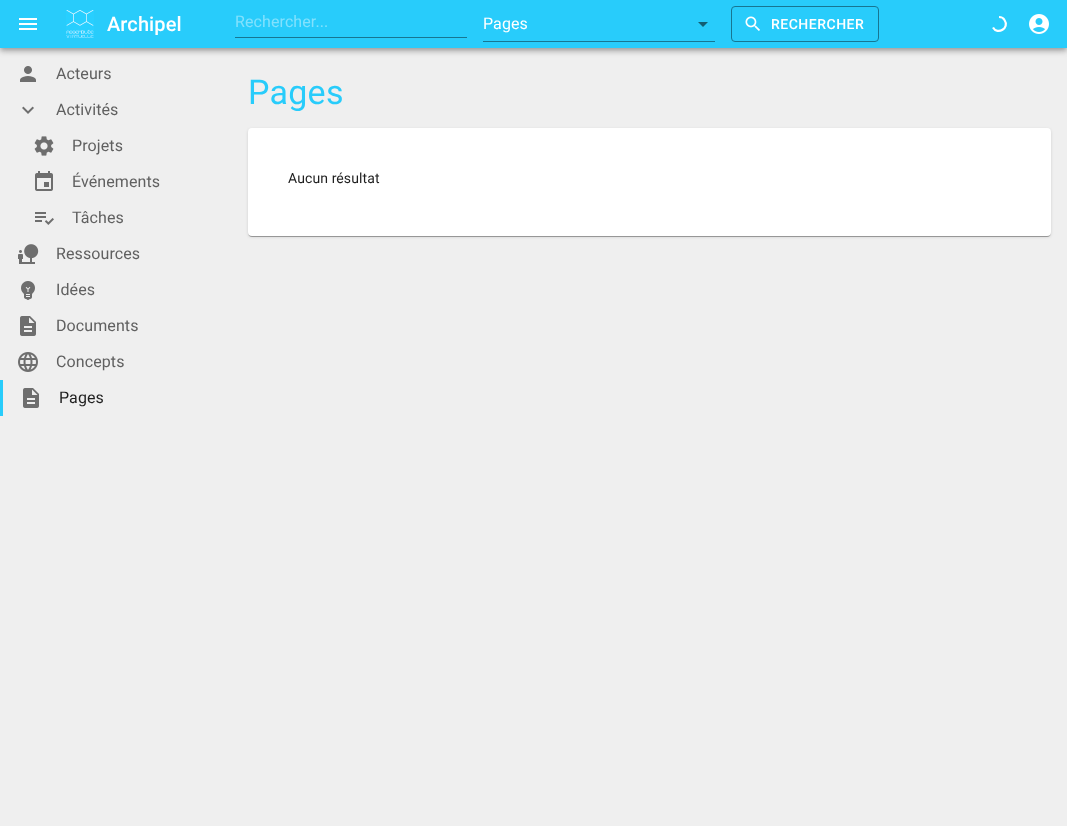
<!DOCTYPE html>
<meta charset="utf-8">
<style>body { margin: 0 } canvas { display: block }</style>
<canvas id="canvas" width="1067" height="826"></canvas>
<img id="img1" src="images/1.png" hidden>
<img id="img2" src="images/2.png" hidden>
<img id="img3" src="images/3.png" hidden>
<img id="img4" src="images/4.png" hidden>
<img id="img5" src="images/5.png" hidden>
<img id="img6" src="images/6.png" hidden>
<img id="img7" src="images/7.png" hidden>
<img id="img8" src="images/8.png" hidden>
<img id="img9" src="images/9.png" hidden>
<img id="img10" src="images/10.png" hidden>
<img id="img11" src="images/11.png" hidden>
<img id="img12" src="images/12.png" hidden>
<img id="img13" src="images/13.png" hidden>
<script>
window.onload = function () {
    const canvas = document.getElementById('canvas');
    const context = canvas.getContext('2d');
    context.miterLimit = 4;
    context.fontKerning = 'normal';

    context.fillStyle = 'rgb(239, 239, 239)';
    context.fillRect(0, 0, 1067, 826);
    context.fillStyle = 'rgba(0, 0, 0, 0.12)';
    context.filter = 'blur(5px)';
    context.beginPath();
    context.rect(0, 1, 1067, 48);
    context.fill();
    context.filter = 'none';
    context.fillStyle = 'rgba(0, 0, 0, 0.14)';
    context.filter = 'blur(2.5px)';
    context.beginPath();
    context.rect(0, 4, 1067, 48);
    context.fill();
    context.filter = 'none';
    context.fillStyle = 'rgba(0, 0, 0, 0.2)';
    context.filter = 'blur(2px)';
    context.beginPath();
    context.rect(1, 3, 1065, 46);
    context.fill();
    context.filter = 'none';
    context.fillStyle = 'rgb(40, 204, 251)';
    context.fillRect(0, 0, 1067, 48);
    context.drawImage(document.getElementById('img1'), 19, 18, 18, 12);
    context.drawImage(document.getElementById('img2'), 66, 10, 28, 28);
    context.fillStyle = 'rgb(23, 118, 146)';
    context.fillRect(235, 37, 232, 1);
    context.fillStyle = 'rgb(18, 94, 115)';
    context.beginPath();
    context.moveTo(698, 22);
    context.lineTo(703, 27);
    context.lineTo(708, 22);
    context.closePath();
    context.fill();
    context.fillStyle = 'rgb(23, 118, 146)';
    context.fillRect(483, 41, 232, 1);
    context.beginPath();
    context.roundRect(731.5, 6.5, 147, 35, 3.5);
    context.strokeStyle = 'rgb(23, 118, 146)';
    context.stroke();
    context.drawImage(document.getElementById('img3'), 745, 16, 15, 15);
    context.beginPath();
    context.moveTo(999, 17);
    context.bezierCurveTo(1001.5, 17, 1003.5, 18, 1004.5, 20);
    context.bezierCurveTo(1010, 28, 997.5, 35.5, 993, 27.5);
    context.strokeStyle = 'rgb(255, 255, 255)';
    context.lineWidth = 2.2;
    context.stroke();
    context.drawImage(document.getElementById('img4'), 1029, 14, 20, 20);
    context.drawImage(document.getElementById('img5'), 20, 66, 16, 16);
    context.drawImage(document.getElementById('img6'), 22, 106, 12, 8);
    context.drawImage(document.getElementById('img7'), 34, 136, 20, 20);
    context.drawImage(document.getElementById('img8'), 35, 171, 18, 20);
    context.drawImage(document.getElementById('img9'), 35, 212, 19, 13);
    context.drawImage(document.getElementById('img10'), 18, 244, 21, 20);
    context.drawImage(document.getElementById('img11'), 21, 281, 14, 19);
    context.drawImage(document.getElementById('img12'), 20, 316, 16, 20);
    context.drawImage(document.getElementById('img13'), 18, 352, 20, 20);
    context.fillStyle = 'rgb(40, 204, 251)';
    context.fillRect(0, 380, 3, 36);
    context.drawImage(document.getElementById('img12'), 23, 388, 16, 20);
    context.fillStyle = 'rgba(0, 0, 0, 0.12)';
    context.filter = 'blur(1.5px)';
    context.beginPath();
    context.roundRect(248, 129, 803, 108, 4);
    context.fill();
    context.filter = 'none';
    context.fillStyle = 'rgba(0, 0, 0, 0.14)';
    context.filter = 'blur(0.5px)';
    context.beginPath();
    context.roundRect(248, 129, 803, 108, 4);
    context.fill();
    context.filter = 'none';
    context.fillStyle = 'rgba(0, 0, 0, 0.2)';
    context.filter = 'blur(0.5px)';
    context.beginPath();
    context.roundRect(249, 131, 801, 106, 3);
    context.fill();
    context.filter = 'none';
    context.fillStyle = 'rgb(255, 255, 255)';
    context.beginPath();
    context.roundRect(248, 128, 803, 108, 4);
    context.fill();
    context.letterSpacing = '0.1px';
    context.font = '500 20px Roboto';
    context.fillText('Archipel', 107, 31);
    context.font = '16px Roboto';
    context.fillStyle = 'rgb(130, 225, 253)';
    context.fillText('Rechercher...', 235, 27);
    context.fillStyle = 'rgb(255, 255, 255)';
    context.fillText('Pages', 483, 29);
    context.letterSpacing = '0.5px';
    context.font = '500 14px Roboto';
    context.fillText('RECHERCHER', 771, 29);
    context.letterSpacing = '0.1px';
    context.font = '16px Roboto';
    context.fillStyle = 'rgb(96, 96, 96)';
    context.fillText('Acteurs', 56, 79);
    context.fillText('Activités', 56, 115);
    context.fillText('Projets', 72, 151);
    context.fillText('Événements', 72, 187);
    context.fillText('Tâches', 72, 223);
    context.fillText('Ressources', 56, 259);
    context.fillText('Idées', 56, 295);
    context.fillText('Documents', 56, 331);
    context.fillText('Concepts', 56, 367);
    context.fillStyle = 'rgb(31, 31, 31)';
    context.fillText('Pages', 59, 403);
    context.letterSpacing = '0.25px';
    context.font = '34px Roboto';
    context.fillStyle = 'rgb(40, 204, 251)';
    context.fillText('Pages', 248, 104);
    context.letterSpacing = '0.1px';
    context.font = '14px Roboto';
    context.fillStyle = 'rgb(31, 31, 31)';
    context.fillText('Aucun résultat', 288, 183);
};
</script>
